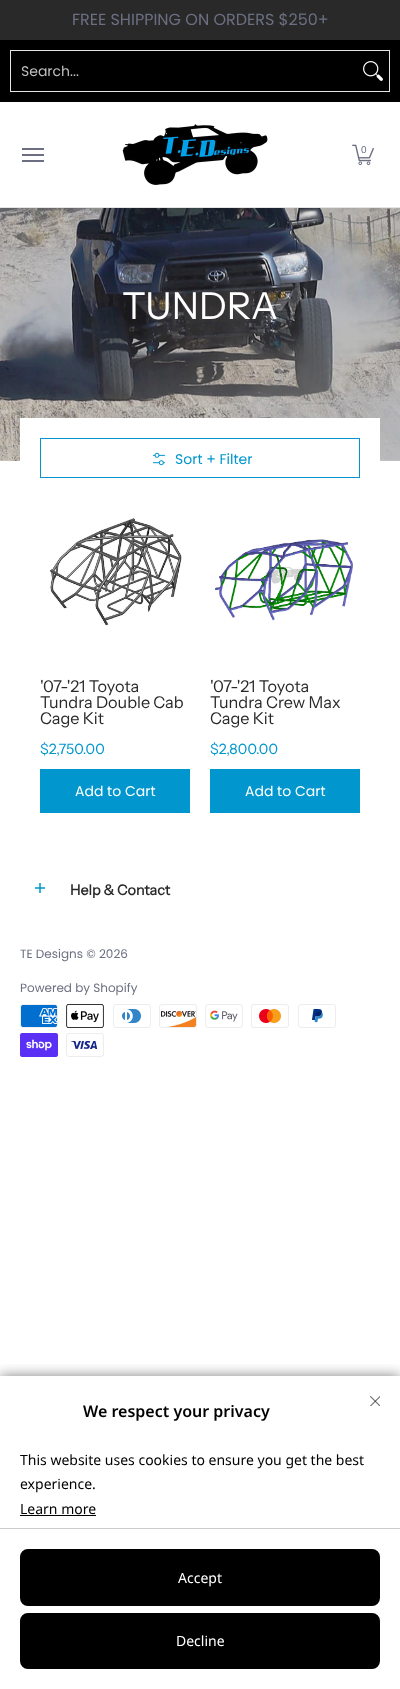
<!DOCTYPE html>
<meta charset="utf-8">
<style>body { margin: 0 } canvas { display: block }</style>
<canvas id="canvas" width="400" height="1689"></canvas>
<img id="img1" src="images/1.png" hidden>
<img id="img2" src="images/2.png" hidden>
<img id="img3" src="images/3.png" hidden>
<img id="img4" src="images/4.png" hidden>
<img id="img5" src="images/5.png" hidden>
<img id="img6" src="images/6.png" hidden>
<img id="img7" src="images/7.png" hidden>
<img id="img8" src="images/8.png" hidden>
<img id="img9" src="images/9.png" hidden>
<img id="img10" src="images/10.png" hidden>
<img id="img11" src="images/11.png" hidden>
<img id="img12" src="images/12.png" hidden>
<img id="img13" src="images/13.png" hidden>
<img id="img14" src="images/14.png" hidden>
<img id="img15" src="images/15.png" hidden>
<img id="img16" src="images/16.png" hidden>
<img id="img17" src="images/17.png" hidden>
<script>
window.onload = function () {
    const canvas = document.getElementById('canvas');
    const context = canvas.getContext('2d');
    context.miterLimit = 4;
    context.fontKerning = 'normal';

    context.fillStyle = 'rgb(255, 255, 255)';
    context.fillRect(0, 0, 400, 1689);
    context.fillStyle = 'rgb(41, 41, 41)';
    context.fillRect(0, 0, 400, 40);
    context.fillStyle = 'rgb(0, 0, 0)';
    context.fillRect(0, 40, 400, 62);
    context.strokeStyle = 'rgb(228, 228, 228)';
    context.strokeRect(10.5, 50.5, 379, 41);
    context.drawImage(document.getElementById('img1'), 363, 61, 20, 20);
    context.fillStyle = 'rgb(228, 228, 228)';
    context.fillRect(0, 207, 400, 1);
    context.fillStyle = 'rgb(107, 111, 129)';
    context.fillRect(22, 148, 22, 2);
    context.fillRect(22, 160, 22, 2);
    context.fillRect(22, 154, 22, 2);
    context.drawImage(document.getElementById('img2'), 122, 124, 146, 61);
    context.drawImage(document.getElementById('img3'), 352, 144, 22, 22);
    context.drawImage(document.getElementById('img4'), 0, 208, 400, 253);
    context.fillStyle = 'rgb(255, 255, 255)';
    context.fillRect(20, 418, 360, 43);
    context.strokeStyle = 'rgb(1, 151, 206)';
    context.strokeRect(40.5, 438.5, 319, 39);
    context.drawImage(document.getElementById('img5'), 152, 452, 14, 14);
    context.drawImage(document.getElementById('img6'), 49, 518, 133, 108);
    context.fillStyle = 'rgb(1, 151, 206)';
    context.fillRect(40, 769, 150, 44);
    context.drawImage(document.getElementById('img7'), 215, 539, 138, 82);
    context.fillRect(210, 769, 150, 44);
    context.beginPath();
    context.moveTo(40, 883.5);
    context.lineTo(40, 892.5);
    context.moveTo(44.5, 888);
    context.lineTo(35.5, 888);
    context.lineWidth = 1.5;
    context.lineCap = 'round';
    context.lineJoin = 'round';
    context.stroke();
    context.drawImage(document.getElementById('img8'), 20, 1004, 38, 24);
    context.drawImage(document.getElementById('img9'), 66, 1004, 38, 24);
    context.drawImage(document.getElementById('img10'), 113, 1004, 38, 24);
    context.drawImage(document.getElementById('img11'), 159, 1004, 38, 24);
    context.drawImage(document.getElementById('img12'), 205, 1004, 38, 24);
    context.drawImage(document.getElementById('img13'), 251, 1004, 38, 24);
    context.drawImage(document.getElementById('img14'), 298, 1004, 38, 24);
    context.drawImage(document.getElementById('img15'), 20, 1033, 38, 24);
    context.drawImage(document.getElementById('img16'), 66, 1033, 38, 24);
    context.save();
    context.beginPath();
    context.rect(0, 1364, 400, 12);
    context.clip();
    context.fillStyle = 'rgba(0, 0, 0, 0.5)';
    context.filter = 'blur(7px)';
    context.beginPath();
    context.rect(0, 1376, 400, 313);
    context.fill();
    context.filter = 'none';
    context.restore();
    context.drawImage(document.getElementById('img17'), 370, 1396, 10, 10);
    context.fillStyle = 'rgb(0, 0, 0)';
    context.fillRect(20, 1515, 76, 1);
    context.fillStyle = 'rgb(204, 204, 204)';
    context.fillRect(0, 1528, 400, 1);
    context.fillStyle = 'rgb(0, 0, 0)';
    context.beginPath();
    context.roundRect(21, 1550, 358, 55, 7);
    context.fill();
    context.strokeStyle = 'rgb(0, 0, 0)';
    context.lineWidth = 2;
    context.lineJoin = 'miter';
    context.stroke();
    context.beginPath();
    context.roundRect(21, 1614, 358, 54, 7);
    context.fill();
    context.stroke();
    context.font = '16px Poppins';
    context.fillStyle = 'rgb(107, 111, 129)';
    context.fillText('FREE SHIPPING ON ORDERS $250+', 72, 25);
    context.font = '14px Poppins';
    context.fillStyle = 'rgb(191, 191, 191)';
    context.fillText('Search...', 21, 76);
    context.font = '10px Liberation Sans';
    context.fillStyle = 'rgb(107, 111, 129)';
    context.fillText('0', 361, 153);
    context.font = '37px Instrument Sans';
    context.fillStyle = 'rgb(255, 255, 255)';
    context.fillText('TUNDRA', 122, 319);
    context.font = '14px Poppins';
    context.fillStyle = 'rgb(1, 151, 206)';
    context.fillText('Sort + Filter', 175, 464);
    context.font = '16.25px Instrument Sans';
    context.fillStyle = 'rgb(41, 41, 41)';
    context.fillText('\'07-\'21 Toyota', 40, 692);
    context.fillText('Tundra Double Cab', 40, 708);
    context.fillText('Cage Kit', 40, 724);
    context.font = '14.25px Instrument Sans';
    context.fillStyle = 'rgb(1, 151, 206)';
    context.fillText('$2,750.00', 40, 754);
    context.font = '14px Poppins';
    context.fillStyle = 'rgb(255, 255, 255)';
    context.fillText('Add to Cart', 75, 796);
    context.font = '16.25px Instrument Sans';
    context.fillStyle = 'rgb(41, 41, 41)';
    context.fillText('\'07-\'21 Toyota', 210, 692);
    context.fillText('Tundra Crew Max', 210, 708);
    context.fillText('Cage Kit', 210, 724);
    context.font = '14.25px Instrument Sans';
    context.fillStyle = 'rgb(1, 151, 206)';
    context.fillText('$2,800.00', 210, 754);
    context.font = '14px Poppins';
    context.fillStyle = 'rgb(255, 255, 255)';
    context.fillText('Add to Cart', 245, 796);
    context.font = 'bold 14.25px Instrument Sans';
    context.fillStyle = 'rgb(41, 41, 41)';
    context.fillText('Help & Contact', 70, 895);
    context.font = '12px Poppins';
    context.fillStyle = 'rgb(107, 111, 129)';
    context.fillText('TE Designs © 2026', 20, 958);
    context.fillText('Powered by Shopify', 20, 992);
    context.font = '600 16px Noto Sans';
    context.fillStyle = 'rgb(0, 0, 0)';
    context.fillText('We respect your privacy', 83, 1417);
    context.font = '14px Noto Sans';
    context.fillText('This website uses cookies to ensure you get the best', 20, 1465);
    context.fillText('experience.', 20, 1489);
    context.fillText('Learn more', 20, 1514);
    context.fillStyle = 'rgb(255, 255, 255)';
    context.fillText('Accept', 178, 1583);
    context.fillText('Decline', 176, 1646);
};
</script>
